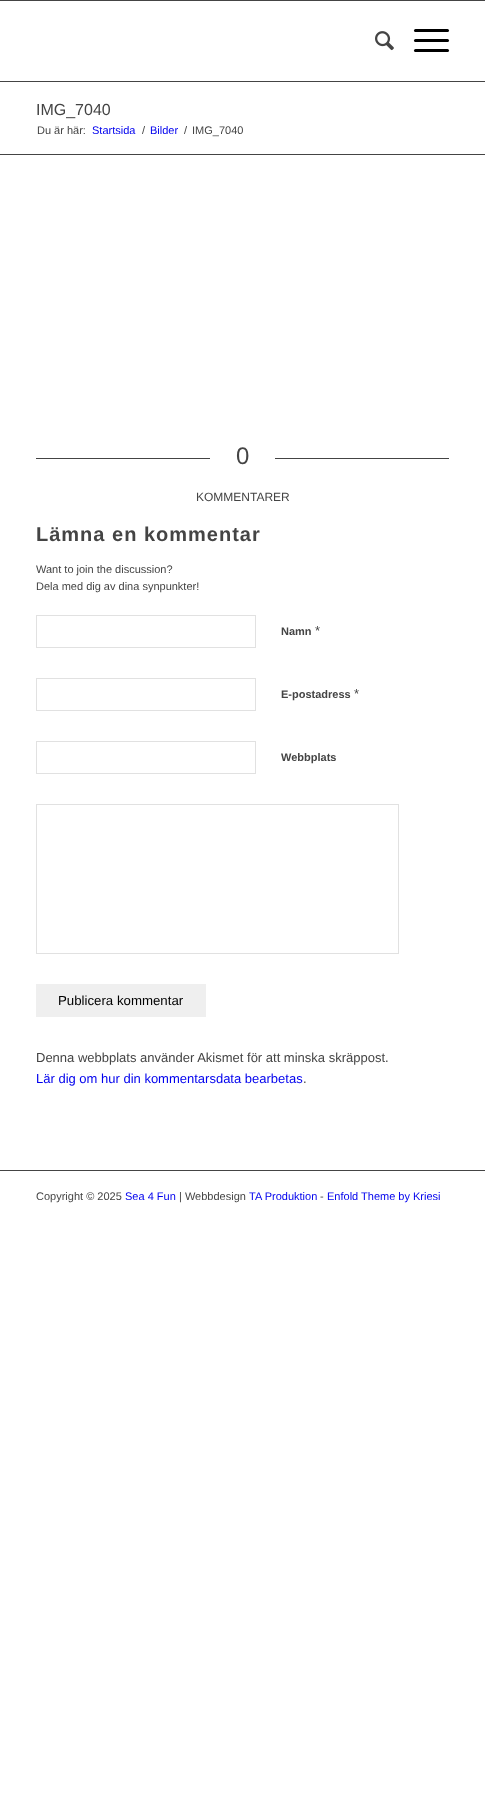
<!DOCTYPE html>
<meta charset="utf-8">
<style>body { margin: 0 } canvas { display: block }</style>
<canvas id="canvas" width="485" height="1803"></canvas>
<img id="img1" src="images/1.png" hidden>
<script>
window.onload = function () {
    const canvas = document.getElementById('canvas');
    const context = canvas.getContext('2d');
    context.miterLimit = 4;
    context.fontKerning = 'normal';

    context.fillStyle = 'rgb(255, 255, 255)';
    context.fillRect(0, 0, 485, 1803);
    context.fillStyle = 'rgb(68, 68, 68)';
    context.fillRect(0, 0, 485, 1);
    context.fillRect(0, 81, 485, 1);
    context.drawImage(document.getElementById('img1'), 375, 31, 19, 20);
    context.fillStyle = 'rgb(0, 0, 0)';
    context.beginPath();
    context.roundRect(414, 39, 35, 3, 1.5);
    context.fill();
    context.beginPath();
    context.roundRect(414, 29, 35, 3, 1.5);
    context.fill();
    context.beginPath();
    context.roundRect(414, 49, 35, 3, 1.5);
    context.fill();
    context.fillStyle = 'rgb(68, 68, 68)';
    context.fillRect(0, 154, 485, 1);
    context.fillRect(36, 458, 174, 1);
    context.fillRect(275, 458, 174, 1);
    context.strokeStyle = 'rgb(225, 225, 225)';
    context.strokeRect(36.5, 615.5, 219, 32);
    context.strokeRect(36.5, 678.5, 219, 32);
    context.strokeRect(36.5, 741.5, 219, 32);
    context.strokeRect(36.5, 804.5, 362, 149);
    context.fillStyle = 'rgb(239, 239, 239)';
    context.fillRect(36, 984, 170, 33);
    context.fillStyle = 'rgb(68, 68, 68)';
    context.fillRect(0, 1170, 485, 1);
    context.font = '16px Liberation Sans';
    context.fillText('IMG_7040', 36, 115);
    context.font = '11px Liberation Sans';
    context.fillText('Du är här:', 37, 134);
    context.fillStyle = 'rgb(0, 0, 238)';
    context.fillText('Startsida', 92, 134);
    context.fillStyle = 'rgb(68, 68, 68)';
    context.fillText('/', 142, 134);
    context.fillStyle = 'rgb(0, 0, 238)';
    context.fillText('Bilder', 150, 134);
    context.fillStyle = 'rgb(68, 68, 68)';
    context.fillText('/', 184, 134);
    context.fillText('IMG_7040', 192, 134);
    context.font = '24px Liberation Sans';
    context.fillText('0', 236, 464);
    context.font = '12px Liberation Sans';
    context.fillText('KOMMENTARER', 196, 501);
    context.letterSpacing = '1px';
    context.font = 'bold 20px Liberation Sans';
    context.fillText('Lämna en kommentar', 36, 541);
    context.letterSpacing = '0px';
    context.font = '11px Liberation Sans';
    context.fillText('Want to join the discussion?', 36, 573);
    context.fillText('Dela med dig av dina synpunkter!', 36, 590);
    context.font = 'bold 11px Liberation Sans';
    context.fillText('Namn', 281, 635);
    context.font = '13px Liberation Sans';
    context.fillText('*', 315, 635);
    context.font = 'bold 11px Liberation Sans';
    context.fillText('E-postadress', 281, 698);
    context.font = '13px Liberation Sans';
    context.fillText('*', 354, 698);
    context.font = 'bold 11px Liberation Sans';
    context.fillText('Webbplats', 281, 761);
    context.font = '13.25px Liberation Sans';
    context.fillStyle = 'rgb(0, 0, 0)';
    context.fillText('Publicera kommentar', 58, 1005);
    context.font = '13px Liberation Sans';
    context.fillStyle = 'rgb(68, 68, 68)';
    context.fillText('Denna webbplats använder Akismet för att minska skräppost.', 36, 1062);
    context.fillStyle = 'rgb(0, 0, 238)';
    context.fillText('Lär dig om hur din kommentarsdata bearbetas', 36, 1083);
    context.fillStyle = 'rgb(68, 68, 68)';
    context.fillText('.', 303, 1083);
    context.font = '11px Liberation Sans';
    context.fillText('Copyright © 2025', 36, 1200);
    context.fillStyle = 'rgb(0, 0, 238)';
    context.fillText('Sea 4 Fun', 125, 1200);
    context.fillStyle = 'rgb(68, 68, 68)';
    context.fillText('| Webbdesign', 179, 1200);
    context.fillStyle = 'rgb(0, 0, 238)';
    context.fillText('TA Produktion', 249, 1200);
    context.fillStyle = 'rgb(68, 68, 68)';
    context.fillText('-', 320, 1200);
    context.fillStyle = 'rgb(0, 0, 238)';
    context.fillText('Enfold Theme by Kriesi', 327, 1200);
};
</script>
